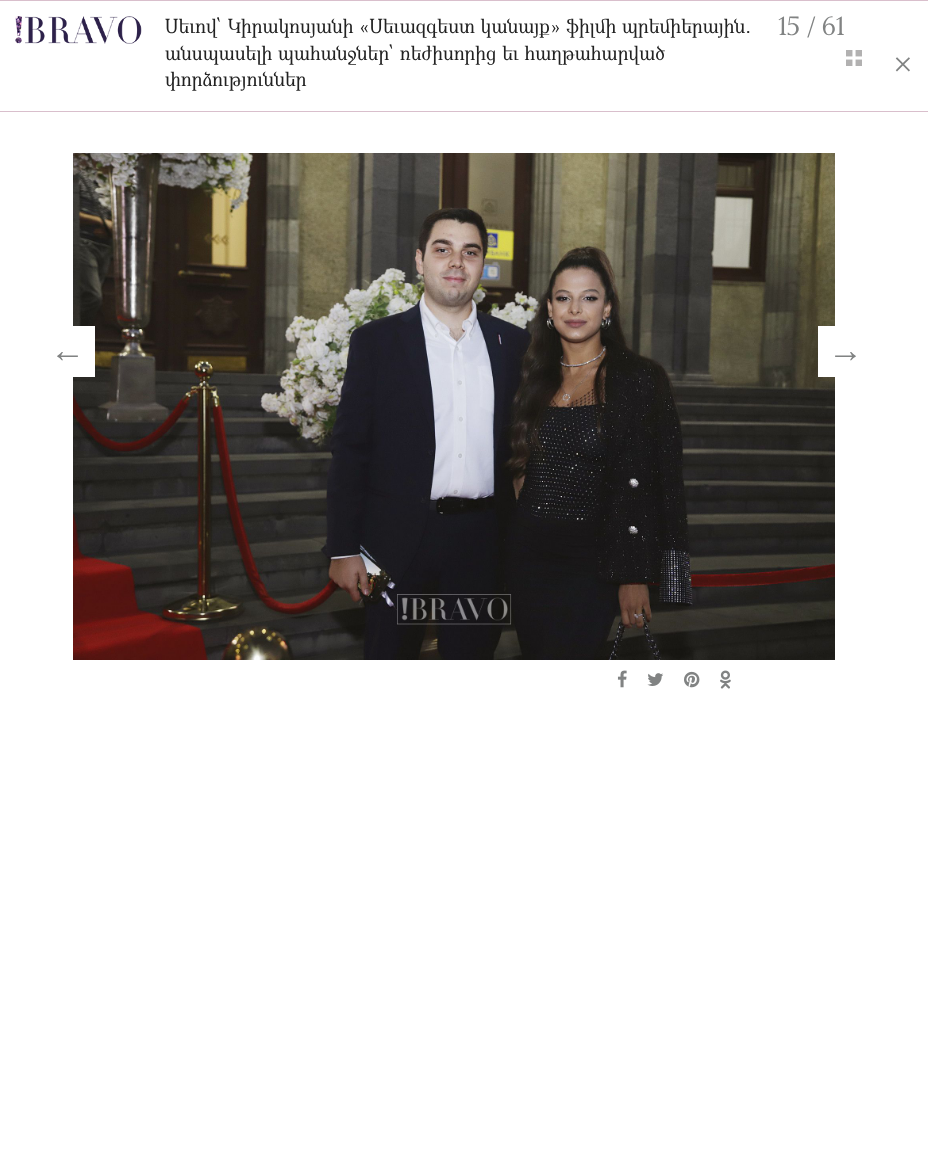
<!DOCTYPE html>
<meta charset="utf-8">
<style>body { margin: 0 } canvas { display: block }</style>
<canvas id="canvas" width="928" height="1166"></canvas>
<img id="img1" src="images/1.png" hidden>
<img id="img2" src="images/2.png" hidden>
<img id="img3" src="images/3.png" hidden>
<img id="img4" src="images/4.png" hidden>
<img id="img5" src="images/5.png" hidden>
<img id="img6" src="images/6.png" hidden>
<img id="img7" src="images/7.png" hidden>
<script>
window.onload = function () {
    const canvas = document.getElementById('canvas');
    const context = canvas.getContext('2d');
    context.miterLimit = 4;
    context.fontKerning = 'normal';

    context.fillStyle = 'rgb(255, 255, 255)';
    context.fillRect(0, 0, 928, 1166);
    context.fillStyle = 'rgb(217, 191, 204)';
    context.fillRect(0, 0, 928, 1);
    context.fillRect(0, 111, 928, 1);
    context.drawImage(document.getElementById('img1'), 15, 16, 127, 28);
    context.drawImage(document.getElementById('img2'), 846, 50, 16, 16);
    context.drawImage(document.getElementById('img3'), 73, 153, 762, 507);
    context.fillStyle = 'rgb(255, 255, 255)';
    context.fillRect(73, 326, 22, 51);
    context.drawImage(document.getElementById('img4'), 617, 670, 10, 18);
    context.drawImage(document.getElementById('img5'), 647, 673, 17, 13);
    context.drawImage(document.getElementById('img6'), 684, 671, 16, 17);
    context.drawImage(document.getElementById('img7'), 720, 670, 11, 19);
    context.fillRect(818, 326, 17, 51);
    context.font = '19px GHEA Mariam';
    context.fillStyle = 'rgb(34, 34, 34)';
    context.fillText('Սեւով՝ Կիրակոսյանի «Սեւազգեստ կանայք» ֆիլմի պրեմիերային.', 165, 33);
    context.fillText('անսպասելի պահանջներ՝ ռեժիսորից եւ հաղթահարված', 165, 60);
    context.fillText('փորձություններ', 165, 86);
    context.font = '25px GHEA Mariam';
    context.fillStyle = 'rgb(129, 131, 131)';
    context.fillText('15 / 61', 778, 35);
    context.font = '35px Liberation Serif';
    context.fillText('×', 893, 76);
    context.font = 'italic 35px Liberation Serif';
    context.fillText('←', 50, 362);
    context.fillText('→', 828, 362);
};
</script>
